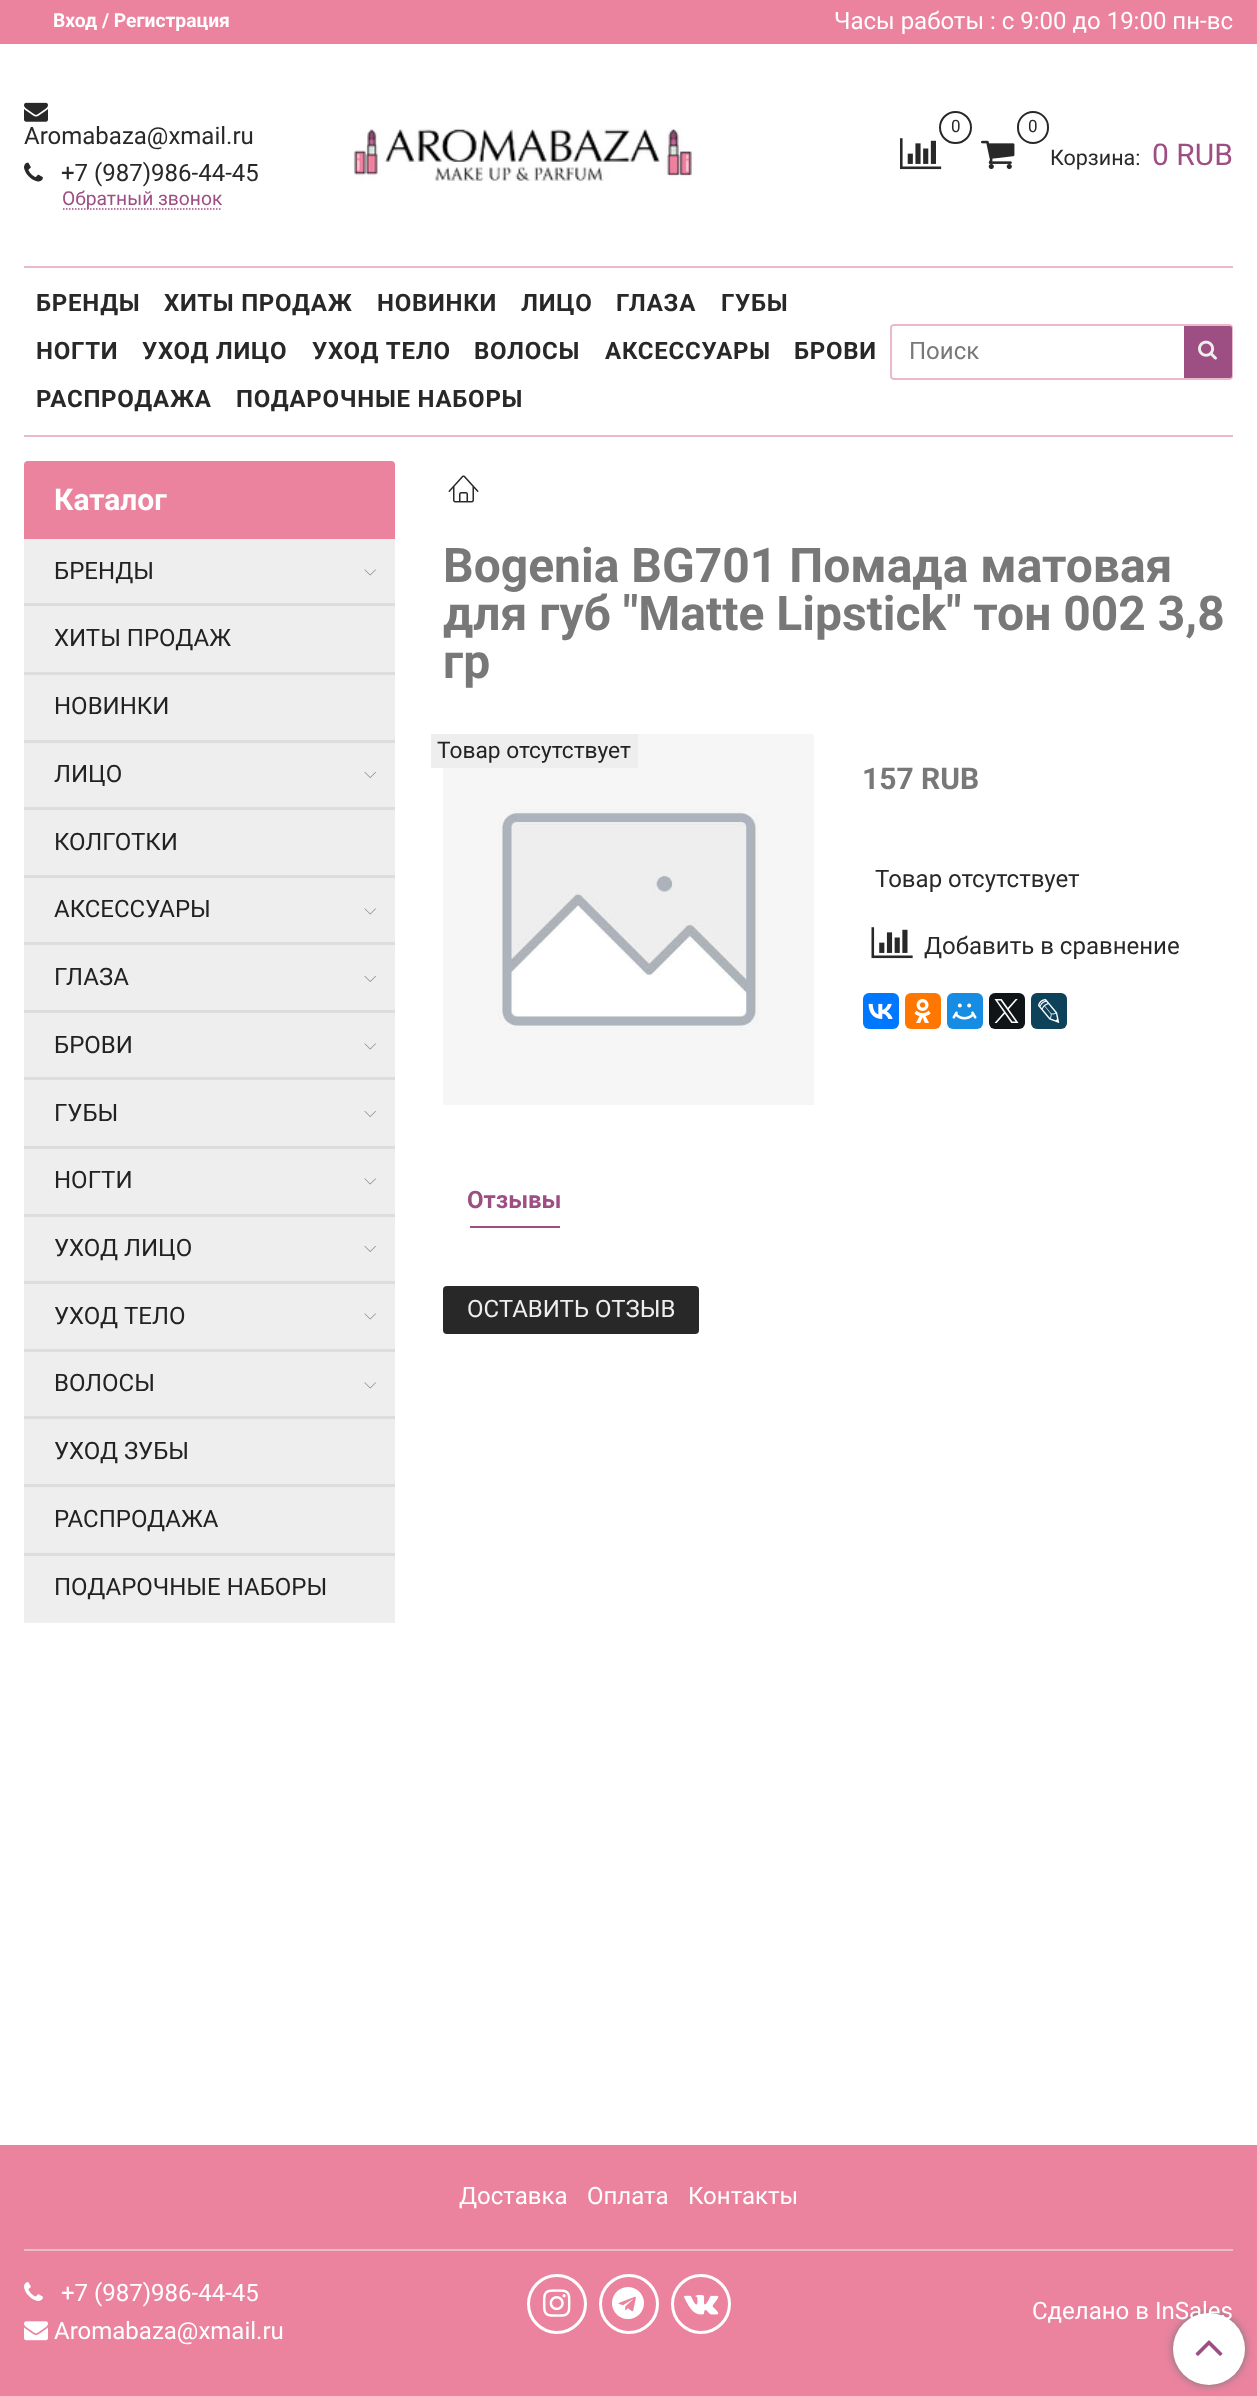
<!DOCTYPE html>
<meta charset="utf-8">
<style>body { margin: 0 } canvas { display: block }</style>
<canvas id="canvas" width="1257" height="2396"></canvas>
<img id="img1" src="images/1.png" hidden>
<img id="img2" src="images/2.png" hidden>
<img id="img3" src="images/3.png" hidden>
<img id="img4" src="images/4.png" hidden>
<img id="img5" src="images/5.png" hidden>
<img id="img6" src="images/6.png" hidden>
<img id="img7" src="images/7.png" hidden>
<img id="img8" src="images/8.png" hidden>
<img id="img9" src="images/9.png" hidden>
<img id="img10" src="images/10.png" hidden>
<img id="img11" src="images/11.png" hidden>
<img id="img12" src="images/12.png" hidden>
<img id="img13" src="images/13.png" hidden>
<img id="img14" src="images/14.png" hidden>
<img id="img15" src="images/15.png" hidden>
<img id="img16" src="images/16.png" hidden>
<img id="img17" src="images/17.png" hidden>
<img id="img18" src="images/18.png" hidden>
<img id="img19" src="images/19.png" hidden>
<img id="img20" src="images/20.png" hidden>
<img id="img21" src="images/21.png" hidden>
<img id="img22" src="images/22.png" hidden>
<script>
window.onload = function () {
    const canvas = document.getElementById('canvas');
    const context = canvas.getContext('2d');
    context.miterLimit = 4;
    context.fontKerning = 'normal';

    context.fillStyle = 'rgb(255, 255, 255)';
    context.fillRect(0, 0, 1257, 2396);
    context.fillStyle = 'rgb(235, 131, 159)';
    context.fillRect(0, 0, 1257, 44);
    context.drawImage(document.getElementById('img1'), 24, 102, 24, 20);
    context.drawImage(document.getElementById('img2'), 24, 162, 19, 20);
    context.beginPath();
    context.moveTo(63, 209);
    context.lineTo(222, 209);
    context.strokeStyle = 'rgb(157, 78, 131)';
    context.lineWidth = 1.5;
    context.setLineDash([1.5, 1.5]);
    context.stroke();
    context.drawImage(document.getElementById('img3'), 353, 128, 341, 53);
    context.drawImage(document.getElementById('img4'), 900, 138, 42, 32);
    context.beginPath();
    context.arc(955.5, 127.5, 15.5, 0, 2 * Math.PI);
    context.strokeStyle = 'rgb(40, 40, 40)';
    context.lineWidth = 2;
    context.setLineDash([]);
    context.stroke();
    context.beginPath();
    context.roundRect(1018, 112, 30, 31, 15);
    context.stroke();
    context.drawImage(document.getElementById('img5'), 981, 140, 34, 30);
    context.fillStyle = 'rgb(235, 186, 199)';
    context.fillRect(24, 266, 1209, 2);
    context.fillRect(24, 435, 1209, 2);
    context.beginPath();
    context.roundRect(891, 325, 341, 54, 3);
    context.strokeStyle = 'rgb(235, 186, 199)';
    context.stroke();
    context.fillStyle = 'rgb(157, 78, 131)';
    context.beginPath();
    context.roundRect(1184, 326, 48, 52, [0, 2, 2, 0]);
    context.fill();
    context.drawImage(document.getElementById('img6'), 1198, 340, 19, 20);
    context.fillStyle = 'rgb(235, 131, 159)';
    context.beginPath();
    context.roundRect(24, 461, 371, 78, [4, 4, 0, 0]);
    context.fill();
    context.fillStyle = 'rgb(238, 238, 238)';
    context.fillRect(24, 539, 371, 1084);
    context.fillStyle = 'rgb(221, 221, 221)';
    context.fillRect(24, 603, 371, 3);
    context.drawImage(document.getElementById('img7'), 364, 569, 12, 7);
    context.fillRect(24, 672, 371, 3);
    context.fillRect(24, 740, 371, 3);
    context.fillRect(24, 807, 371, 3);
    context.drawImage(document.getElementById('img8'), 364, 772, 12, 6);
    context.fillRect(24, 875, 371, 3);
    context.fillRect(24, 942, 371, 3);
    context.drawImage(document.getElementById('img7'), 364, 908, 12, 7);
    context.fillRect(24, 1010, 371, 3);
    context.drawImage(document.getElementById('img8'), 364, 976, 12, 6);
    context.fillRect(24, 1077, 371, 3);
    context.drawImage(document.getElementById('img7'), 364, 1043, 12, 7);
    context.fillRect(24, 1146, 371, 3);
    context.drawImage(document.getElementById('img8'), 364, 1111, 12, 6);
    context.fillRect(24, 1214, 371, 3);
    context.drawImage(document.getElementById('img7'), 364, 1178, 12, 7);
    context.fillRect(24, 1281, 371, 3);
    context.drawImage(document.getElementById('img8'), 364, 1246, 12, 6);
    context.fillRect(24, 1349, 371, 3);
    context.drawImage(document.getElementById('img7'), 364, 1313, 12, 7);
    context.fillRect(24, 1416, 371, 3);
    context.drawImage(document.getElementById('img7'), 364, 1382, 12, 7);
    context.fillRect(24, 1484, 371, 3);
    context.fillRect(24, 1553, 371, 3);
    context.drawImage(document.getElementById('img9'), 448, 475, 31, 28);
    context.drawImage(document.getElementById('img10'), 443, 734, 371, 371);
    context.fillStyle = 'rgb(238, 238, 238)';
    context.fillRect(431, 734, 207, 34);
    context.drawImage(document.getElementById('img11'), 871, 927, 42, 32);
    context.fillStyle = 'rgb(0, 119, 255)';
    context.beginPath();
    context.roundRect(863, 993, 36, 36, 6);
    context.fill();
    context.drawImage(document.getElementById('img12'), 868, 1003, 25, 16);
    context.fillStyle = 'rgb(255, 119, 0)';
    context.beginPath();
    context.roundRect(905, 993, 36, 36, 6);
    context.fill();
    context.drawImage(document.getElementById('img13'), 914, 999, 17, 24);
    context.fillStyle = 'rgb(22, 141, 226)';
    context.beginPath();
    context.roundRect(947, 993, 36, 36, 6);
    context.fill();
    context.drawImage(document.getElementById('img14'), 952, 1003, 25, 17);
    context.fillStyle = 'rgb(15, 20, 25)';
    context.beginPath();
    context.roundRect(989, 993, 36, 36, 6);
    context.fill();
    context.drawImage(document.getElementById('img15'), 994, 999, 25, 24);
    context.fillStyle = 'rgb(13, 66, 90)';
    context.beginPath();
    context.roundRect(1031, 993, 36, 36, 6);
    context.fill();
    context.drawImage(document.getElementById('img16'), 1038, 999, 22, 24);
    context.fillStyle = 'rgb(157, 78, 131)';
    context.fillRect(470, 1226, 90, 2);
    context.fillStyle = 'rgb(40, 40, 40)';
    context.beginPath();
    context.roundRect(443, 1286, 256, 48, 4);
    context.fill();
    context.fillStyle = 'rgb(235, 131, 159)';
    context.fillRect(0, 2145, 1257, 251);
    context.fillStyle = 'rgb(235, 186, 199)';
    context.fillRect(24, 2249, 1209, 2);
    context.drawImage(document.getElementById('img17'), 24, 2282, 19, 19);
    context.drawImage(document.getElementById('img18'), 24, 2321, 24, 20);
    context.beginPath();
    context.arc(557, 2304, 28.5, 0, 2 * Math.PI);
    context.strokeStyle = 'rgb(255, 255, 255)';
    context.lineWidth = 3;
    context.stroke();
    context.drawImage(document.getElementById('img19'), 543, 2289, 28, 28);
    context.beginPath();
    context.arc(629, 2304, 28.5, 0, 2 * Math.PI);
    context.stroke();
    context.drawImage(document.getElementById('img20'), 612, 2287, 32, 33);
    context.beginPath();
    context.arc(701, 2304, 28.5, 0, 2 * Math.PI);
    context.stroke();
    context.drawImage(document.getElementById('img21'), 684, 2294, 35, 21);
    context.fillStyle = 'rgb(119, 119, 119)';
    context.filter = 'blur(4px)';
    context.beginPath();
    context.roundRect(1173, 2313, 72, 72, 36);
    context.fill();
    context.filter = 'none';
    context.fillStyle = 'rgb(255, 255, 255)';
    context.beginPath();
    context.arc(1209, 2349, 36, 0, 2 * Math.PI);
    context.fill();
    context.drawImage(document.getElementById('img22'), 1195, 2340, 28, 16);
    context.font = 'bold 19.25px Roboto';
    context.fillText('Вход / Регистрация', 53, 27);
    context.font = '24px Roboto';
    context.fillText('Часы работы : с 9:00 до 19:00 пн-вс', 834, 29);
    context.fillStyle = 'rgb(40, 40, 40)';
    context.fillText('Aromabaza@xmail.ru', 24, 144);
    context.fillText('+7 (987)986-44-45', 61, 181);
    context.font = '19.25px Roboto';
    context.fillStyle = 'rgb(157, 78, 131)';
    context.fillText('Обратный звонок', 62, 205);
    context.font = '17px Roboto';
    context.fillStyle = 'rgb(40, 40, 40)';
    context.fillText('0', 951, 132);
    context.fillText('0', 1028, 132);
    context.font = '21.5px Roboto';
    context.fillText('Корзина:', 1050, 165);
    context.font = '30px Roboto';
    context.fillStyle = 'rgb(157, 78, 131)';
    context.fillText('0 RUB', 1152, 165);
    context.letterSpacing = '0.75px';
    context.font = 'bold 24px Roboto';
    context.fillStyle = 'rgb(40, 40, 40)';
    context.fillText('БРЕНДЫ', 36, 311);
    context.fillText('ХИТЫ ПРОДАЖ', 164, 311);
    context.fillText('НОВИНКИ', 377, 311);
    context.fillText('ЛИЦО', 521, 311);
    context.fillText('ГЛАЗА', 616, 311);
    context.fillText('ГУБЫ', 721, 311);
    context.fillText('НОГТИ', 36, 359);
    context.fillText('УХОД ЛИЦО', 142, 359);
    context.fillText('УХОД ТЕЛО', 312, 359);
    context.fillText('ВОЛОСЫ', 474, 359);
    context.fillText('АКСЕССУАРЫ', 605, 359);
    context.fillText('БРОВИ', 794, 359);
    context.fillText('РАСПРОДАЖА', 36, 407);
    context.fillText('ПОДАРОЧНЫЕ НАБОРЫ', 236, 407);
    context.letterSpacing = '0px';
    context.font = '24px Roboto';
    context.fillStyle = 'rgb(120, 120, 120)';
    context.fillText('Поиск', 909, 359);
    context.font = 'bold 30px Roboto';
    context.fillStyle = 'rgb(255, 255, 255)';
    context.fillText('Каталог', 54, 510);
    context.font = '24px Roboto';
    context.fillStyle = 'rgb(34, 34, 34)';
    context.fillText('БРЕНДЫ', 54, 579);
    context.fillText('ХИТЫ ПРОДАЖ', 54, 646);
    context.fillText('НОВИНКИ', 54, 714);
    context.fillText('ЛИЦО', 54, 782);
    context.fillText('КОЛГОТКИ', 54, 850);
    context.fillText('АКСЕССУАРЫ', 54, 917);
    context.fillText('ГЛАЗА', 54, 985);
    context.fillText('БРОВИ', 54, 1053);
    context.fillText('ГУБЫ', 54, 1121);
    context.fillText('НОГТИ', 54, 1188);
    context.fillText('УХОД ЛИЦО', 54, 1256);
    context.fillText('УХОД ТЕЛО', 54, 1324);
    context.fillText('ВОЛОСЫ', 54, 1391);
    context.fillText('УХОД ЗУБЫ', 54, 1459);
    context.fillText('РАСПРОДАЖА', 54, 1527);
    context.fillText('ПОДАРОЧНЫЕ НАБОРЫ', 54, 1595);
    context.font = 'bold 48px Roboto';
    context.fillStyle = 'rgb(120, 120, 120)';
    context.fillText('Bogenia BG701 Помада матовая', 443, 582);
    context.fillText('для губ "Matte Lipstick" тон 002 3,8', 443, 630);
    context.fillText('гр', 443, 678);
    context.font = '22.75px Roboto';
    context.fillStyle = 'rgb(34, 34, 34)';
    context.fillText('Товар отсутствует', 437, 758);
    context.font = 'bold 30px Roboto';
    context.fillStyle = 'rgb(120, 120, 120)';
    context.fillText('157 RUB', 862, 789);
    context.font = '24px Roboto';
    context.fillStyle = 'rgb(40, 40, 40)';
    context.fillText('Товар отсутствует', 875, 887);
    context.fillText('Добавить в сравнение', 924, 954);
    context.font = 'bold 24px Roboto';
    context.fillStyle = 'rgb(157, 78, 131)';
    context.fillText('Отзывы', 467, 1208);
    context.font = '24px Roboto';
    context.fillStyle = 'rgb(238, 238, 238)';
    context.fillText('ОСТАВИТЬ ОТЗЫВ', 467, 1317);
    context.fillStyle = 'rgb(255, 255, 255)';
    context.fillText('Доставка', 459, 2204);
    context.fillText('Оплата', 587, 2204);
    context.fillText('Контакты', 688, 2204);
    context.fillText('+7 (987)986-44-45', 61, 2301);
    context.fillText('Aromabaza@xmail.ru', 54, 2339);
    context.fillText('Сделано в InSales', 1032, 2319);
};
</script>
